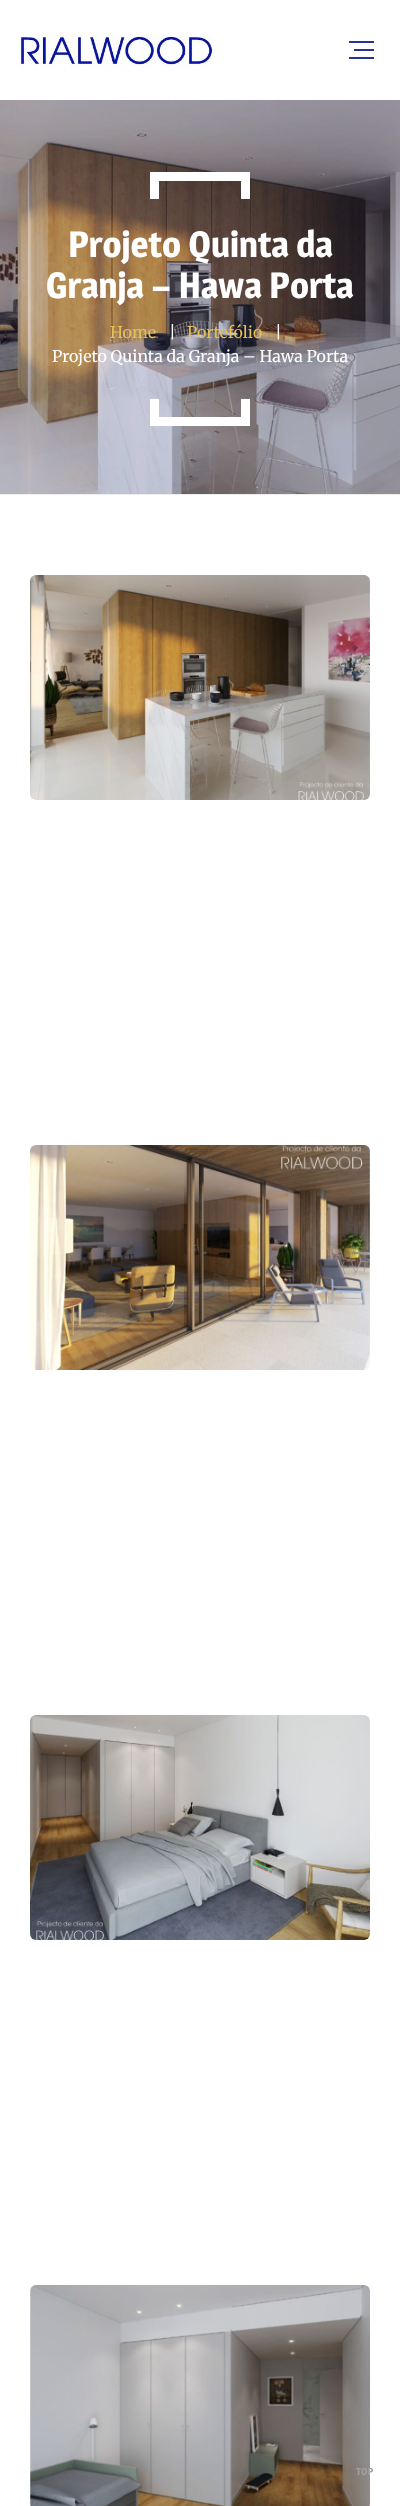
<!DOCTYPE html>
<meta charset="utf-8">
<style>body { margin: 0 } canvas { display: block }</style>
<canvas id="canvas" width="400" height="2506"></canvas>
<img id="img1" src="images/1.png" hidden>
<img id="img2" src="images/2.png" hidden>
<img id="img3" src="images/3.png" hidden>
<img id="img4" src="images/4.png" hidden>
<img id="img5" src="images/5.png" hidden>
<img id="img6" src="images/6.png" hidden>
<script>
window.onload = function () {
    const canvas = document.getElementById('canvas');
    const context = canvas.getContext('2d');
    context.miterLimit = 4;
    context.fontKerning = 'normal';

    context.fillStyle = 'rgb(255, 255, 255)';
    context.fillRect(0, 0, 400, 2506);
    context.drawImage(document.getElementById('img1'), 15, 34, 202, 37);
    context.fillStyle = 'rgb(42, 53, 146)';
    context.fillRect(349, 41, 25, 2);
    context.fillRect(354, 49, 20, 2);
    context.fillRect(349, 57, 25, 2);
    context.drawImage(document.getElementById('img2'), 0, 100, 400, 394);
    context.fillStyle = 'rgb(238, 238, 238)';
    context.fillRect(0, 494, 400, 1);
    context.fillStyle = 'rgb(255, 255, 255)';
    context.fillRect(150, 172, 100, 9);
    context.fillRect(150, 181, 9, 18);
    context.fillRect(241, 181, 9, 18);
    context.fillRect(150, 417, 100, 9);
    context.fillRect(150, 399, 9, 18);
    context.fillRect(241, 399, 9, 18);
    context.drawImage(document.getElementById('img3'), 30, 575, 340, 225);
    context.drawImage(document.getElementById('img4'), 30, 1145, 340, 225);
    context.drawImage(document.getElementById('img5'), 30, 1715, 340, 225);
    context.drawImage(document.getElementById('img6'), 30, 2285, 340, 221);
    context.font = 'bold 36px Magra';
    context.fillText('Projeto Quinta da', 68, 257);
    context.fillText('Granja – Hawa Porta', 46, 298);
    context.font = '16px Merriweather';
    context.fillStyle = 'rgb(230, 191, 85)';
    context.fillText('Home', 110, 338);
    context.fillStyle = 'rgb(255, 255, 255)';
    context.fillText('|', 169, 338);
    context.fillStyle = 'rgb(230, 191, 85)';
    context.fillText('Portefólio', 187, 338);
    context.fillStyle = 'rgb(255, 255, 255)';
    context.fillText('|', 275, 338);
    context.fillText('Projeto Quinta da Granja – Hawa Porta', 52, 362);
    context.font = 'bold 10px Magra';
    context.fillStyle = 'rgb(162, 158, 156)';
    context.fillText('TOP', 356, 2475);
};
</script>
